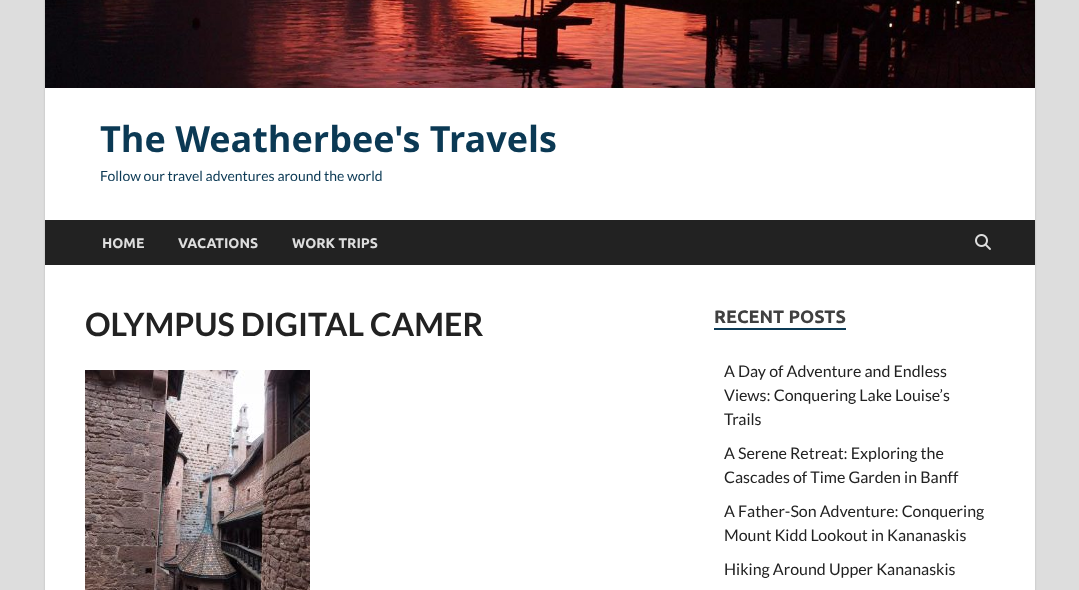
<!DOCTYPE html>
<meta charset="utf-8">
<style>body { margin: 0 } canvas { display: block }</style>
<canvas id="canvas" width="1079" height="590"></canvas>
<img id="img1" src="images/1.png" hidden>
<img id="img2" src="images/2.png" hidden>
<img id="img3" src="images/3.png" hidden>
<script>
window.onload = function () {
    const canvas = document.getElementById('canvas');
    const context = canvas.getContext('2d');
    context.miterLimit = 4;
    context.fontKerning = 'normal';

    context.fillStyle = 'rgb(221, 221, 221)';
    context.fillRect(0, 0, 1079, 590);
    context.fillStyle = 'rgb(187, 187, 187)';
    context.filter = 'blur(1px)';
    context.beginPath();
    context.rect(45, -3, 990, 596);
    context.fill();
    context.filter = 'none';
    context.fillStyle = 'rgb(255, 255, 255)';
    context.fillRect(45, 88, 990, 502);
    context.drawImage(document.getElementById('img1'), 45, 0, 990, 88);
    context.fillStyle = 'rgb(34, 34, 34)';
    context.fillRect(45, 220, 990, 45);
    context.drawImage(document.getElementById('img2'), 975, 234, 16, 16);
    context.drawImage(document.getElementById('img3'), 85, 370, 225, 220);
    context.fillStyle = 'rgb(11, 57, 84)';
    context.fillRect(714, 328, 132, 2);
    context.font = 'bold 36px Open Sans';
    context.fillText('The Weatherbee\'s Travels', 100, 152);
    context.font = '14px Lato';
    context.fillText('Follow our travel adventures around the world', 100, 181);
    context.font = 'bold 14px Ubuntu';
    context.fillStyle = 'rgb(221, 221, 221)';
    context.fillText('HOME', 102, 248);
    context.fillText('VACATIONS', 178, 248);
    context.fillText('WORK TRIPS', 292, 248);
    context.font = 'bold 32px Lato';
    context.fillStyle = 'rgb(34, 34, 34)';
    context.fillText('OLYMPUS DIGITAL CAMER', 85, 336);
    context.font = 'bold 18px Ubuntu';
    context.fillStyle = 'rgb(64, 64, 64)';
    context.fillText('RECENT POSTS', 714, 323);
    context.font = '16px Lato';
    context.fillStyle = 'rgb(34, 34, 34)';
    context.fillText('A Day of Adventure and Endless', 724, 377);
    context.fillText('Views: Conquering Lake Louise’s', 724, 401);
    context.fillText('Trails', 724, 425);
    context.fillText('A Serene Retreat: Exploring the', 724, 459);
    context.fillText('Cascades of Time Garden in Banff', 724, 483);
    context.fillText('A Father-Son Adventure: Conquering', 724, 517);
    context.fillText('Mount Kidd Lookout in Kananaskis', 724, 541);
    context.fillText('Hiking Around Upper Kananaskis', 724, 575);
};
</script>
